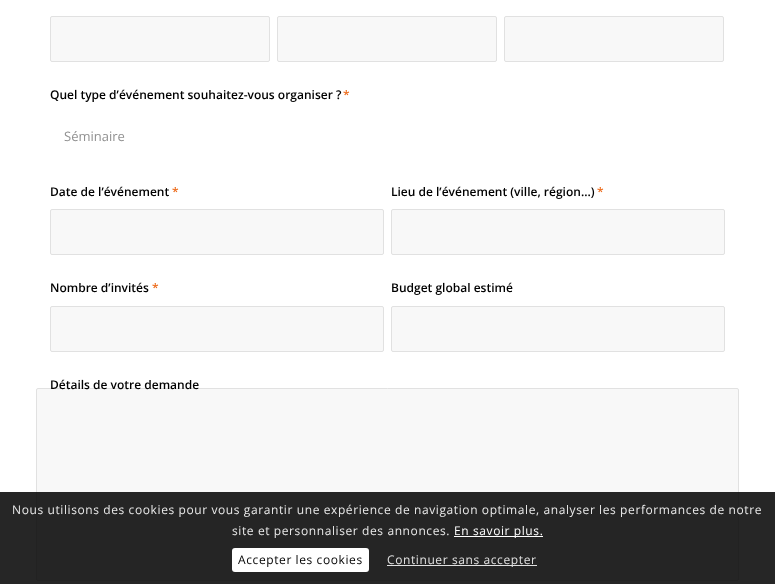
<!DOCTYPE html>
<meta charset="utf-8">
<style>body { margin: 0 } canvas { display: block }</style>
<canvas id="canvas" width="775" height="584"></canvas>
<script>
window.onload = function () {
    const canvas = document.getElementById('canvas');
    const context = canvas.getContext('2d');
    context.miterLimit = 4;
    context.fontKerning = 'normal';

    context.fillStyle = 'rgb(255, 255, 255)';
    context.fillRect(0, 0, 775, 584);
    context.fillStyle = 'rgb(248, 248, 248)';
    context.beginPath();
    context.roundRect(50.5, 16.5, 219, 45, 1.5);
    context.fill();
    context.strokeStyle = 'rgb(225, 225, 225)';
    context.stroke();
    context.beginPath();
    context.roundRect(277.5, 16.5, 219, 45, 1.5);
    context.fill();
    context.stroke();
    context.beginPath();
    context.roundRect(504.5, 16.5, 219, 45, 1.5);
    context.fill();
    context.stroke();
    context.beginPath();
    context.roundRect(50.5, 209.5, 333, 45, 1.5);
    context.fill();
    context.stroke();
    context.beginPath();
    context.roundRect(391.5, 209.5, 333, 45, 1.5);
    context.fill();
    context.stroke();
    context.beginPath();
    context.roundRect(50.5, 306.5, 333, 45, 1.5);
    context.fill();
    context.stroke();
    context.beginPath();
    context.roundRect(391.5, 306.5, 333, 45, 1.5);
    context.fill();
    context.stroke();
    context.beginPath();
    context.roundRect(36.5, 388.5, 702, 192, 1.5);
    context.fill();
    context.stroke();
    context.fillStyle = 'rgba(0, 0, 0, 0.85)';
    context.fillRect(0, 492, 775, 92);
    context.fillStyle = 'rgb(255, 255, 255)';
    context.fillRect(454, 536, 89, 1);
    context.beginPath();
    context.roundRect(232, 548, 137, 24, 3);
    context.fill();
    context.fillStyle = 'rgb(225, 225, 225)';
    context.fillRect(387, 565, 150, 1);
    context.font = '600 12px Open Sans';
    context.fillStyle = 'rgb(0, 0, 0)';
    context.fillText('Quel type d’événement souhaitez-vous organiser ?', 50, 99);
    context.fillStyle = 'rgb(237, 108, 28)';
    context.fillText('*', 343, 99);
    context.font = '13px Open Sans';
    context.fillStyle = 'rgb(145, 145, 145)';
    context.fillText('Séminaire', 64, 141);
    context.font = '600 12px Open Sans';
    context.fillStyle = 'rgb(0, 0, 0)';
    context.fillText('Date de l’événement', 50, 196);
    context.fillStyle = 'rgb(237, 108, 28)';
    context.fillText('*', 172, 196);
    context.fillStyle = 'rgb(0, 0, 0)';
    context.fillText('Lieu de l’événement (ville, région...)', 391, 196);
    context.fillStyle = 'rgb(237, 108, 28)';
    context.fillText('*', 597, 196);
    context.fillStyle = 'rgb(0, 0, 0)';
    context.fillText('Nombre d’invités', 50, 292);
    context.fillStyle = 'rgb(237, 108, 28)';
    context.fillText('*', 152, 292);
    context.fillStyle = 'rgb(0, 0, 0)';
    context.fillText('Budget global estimé', 391, 292);
    context.fillText('Détails de votre demande', 50, 389);
    context.letterSpacing = '0.6px';
    context.font = '12px Open Sans';
    context.fillStyle = 'rgb(233, 233, 233)';
    context.fillText('Nous utilisons des cookies pour vous garantir une expérience de navigation optimale, analyser les performances de notre', 12, 514);
    context.fillText('site et personnaliser des annonces.', 232, 535);
    context.fillStyle = 'rgb(255, 255, 255)';
    context.fillText('En savoir plus.', 454, 535);
    context.fillStyle = 'rgb(0, 0, 0)';
    context.fillText('Accepter les cookies', 238, 564);
    context.fillStyle = 'rgb(225, 225, 225)';
    context.fillText('Continuer sans accepter', 387, 564);
};
</script>
